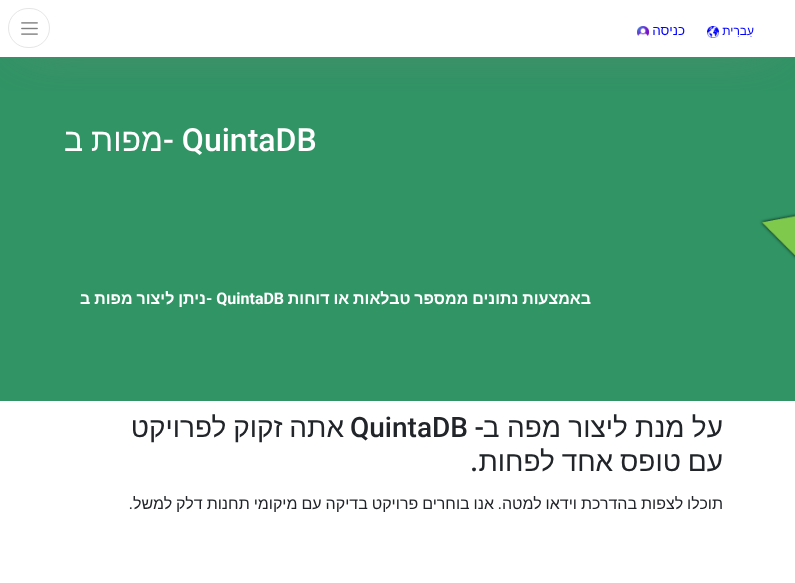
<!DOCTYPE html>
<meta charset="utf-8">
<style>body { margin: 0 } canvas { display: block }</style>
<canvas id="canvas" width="795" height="583"></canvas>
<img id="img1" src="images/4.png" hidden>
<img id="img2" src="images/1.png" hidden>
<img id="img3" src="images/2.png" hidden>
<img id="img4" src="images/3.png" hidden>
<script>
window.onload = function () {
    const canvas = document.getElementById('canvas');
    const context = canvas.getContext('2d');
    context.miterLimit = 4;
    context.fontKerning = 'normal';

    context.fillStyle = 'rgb(255, 255, 255)';
    context.fillRect(0, 0, 795, 583);
    context.drawImage(document.getElementById('img1'), 0, 57, 795, 344);
    context.save();
    context.beginPath();
    context.rect(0, 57, 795, 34);
    context.clip();
    context.fillStyle = 'rgb(128, 128, 128)';
    context.filter = 'blur(27.5px)';
    context.beginPath();
    context.rect(20, 20, 755, 17);
    context.fill();
    context.filter = 'none';
    context.restore();
    context.drawImage(document.getElementById('img2'), 707, 26, 12, 12);
    context.drawImage(document.getElementById('img3'), 637, 26, 12, 10);
    context.beginPath();
    context.roundRect(8.5, 8.5, 41, 39, 19.5);
    context.strokeStyle = 'rgb(230, 230, 230)';
    context.stroke();
    context.drawImage(document.getElementById('img4'), 21, 22, 17, 13);
    context.direction = 'rtl';
    context.font = '12px Liberation Sans';
    context.fillStyle = 'rgb(0, 0, 255)';
    context.fillText('עִברִית', 754, 35);
    context.font = '13.5px Liberation Sans';
    context.fillText('כניסה', 685, 35);
    context.direction = 'ltr';
    context.font = '500 32px Roboto';
    context.fillStyle = 'rgb(255, 255, 255)';
    context.fillText('- QuintaDB', 163, 151);
    context.wordSpacing = '-1px';
    context.direction = 'rtl';
    context.font = '32px Liberation Sans';
    context.fillText('מפות ב', 163, 151);
    context.wordSpacing = '-0.5px';
    context.font = 'bold 16px Liberation Sans';
    context.fillText('באמצעות נתונים ממספר טבלאות או דוחות', 591, 304);
    context.wordSpacing = '0px';
    context.direction = 'ltr';
    context.font = 'bold 16px Roboto';
    context.fillText('- QuintaDB', 206, 304);
    context.wordSpacing = '-0.5px';
    context.direction = 'rtl';
    context.font = 'bold 16px Liberation Sans';
    context.fillText('ניתן ליצור מפות ב', 206, 304);
    context.font = '28px Liberation Sans';
    context.fillStyle = 'rgb(33, 37, 41)';
    context.fillText('על מנת ליצור מפה ב', 723, 437);
    context.wordSpacing = '0px';
    context.font = '500 28px Roboto';
    context.fillText('-', 484, 437);
    context.direction = 'ltr';
    context.fillText('QuintaDB', 350, 437);
    context.wordSpacing = '-1px';
    context.direction = 'rtl';
    context.font = '28px Liberation Sans';
    context.fillText('אתה זקוק לפרויקט', 344, 437);
    context.fillText('עם טופס אחד לפחות', 723, 471);
    context.wordSpacing = '0px';
    context.font = '500 28px Roboto';
    context.fillText('.', 478, 471);
    context.wordSpacing = '-0.5px';
    context.font = '16px Liberation Sans';
    context.fillText('תוכלו לצפות בהדרכת וידאו למטה', 723, 509);
    context.wordSpacing = '0px';
    context.font = '16px Roboto';
    context.fillText('.', 502, 509);
    context.wordSpacing = '-0.5px';
    context.font = '16px Liberation Sans';
    context.fillText('אנו בוחרים פרויקט בדיקה עם מיקומי תחנות דלק למשל', 494, 509);
    context.wordSpacing = '0px';
    context.font = '16px Roboto';
    context.fillText('.', 133, 509);
};
</script>
